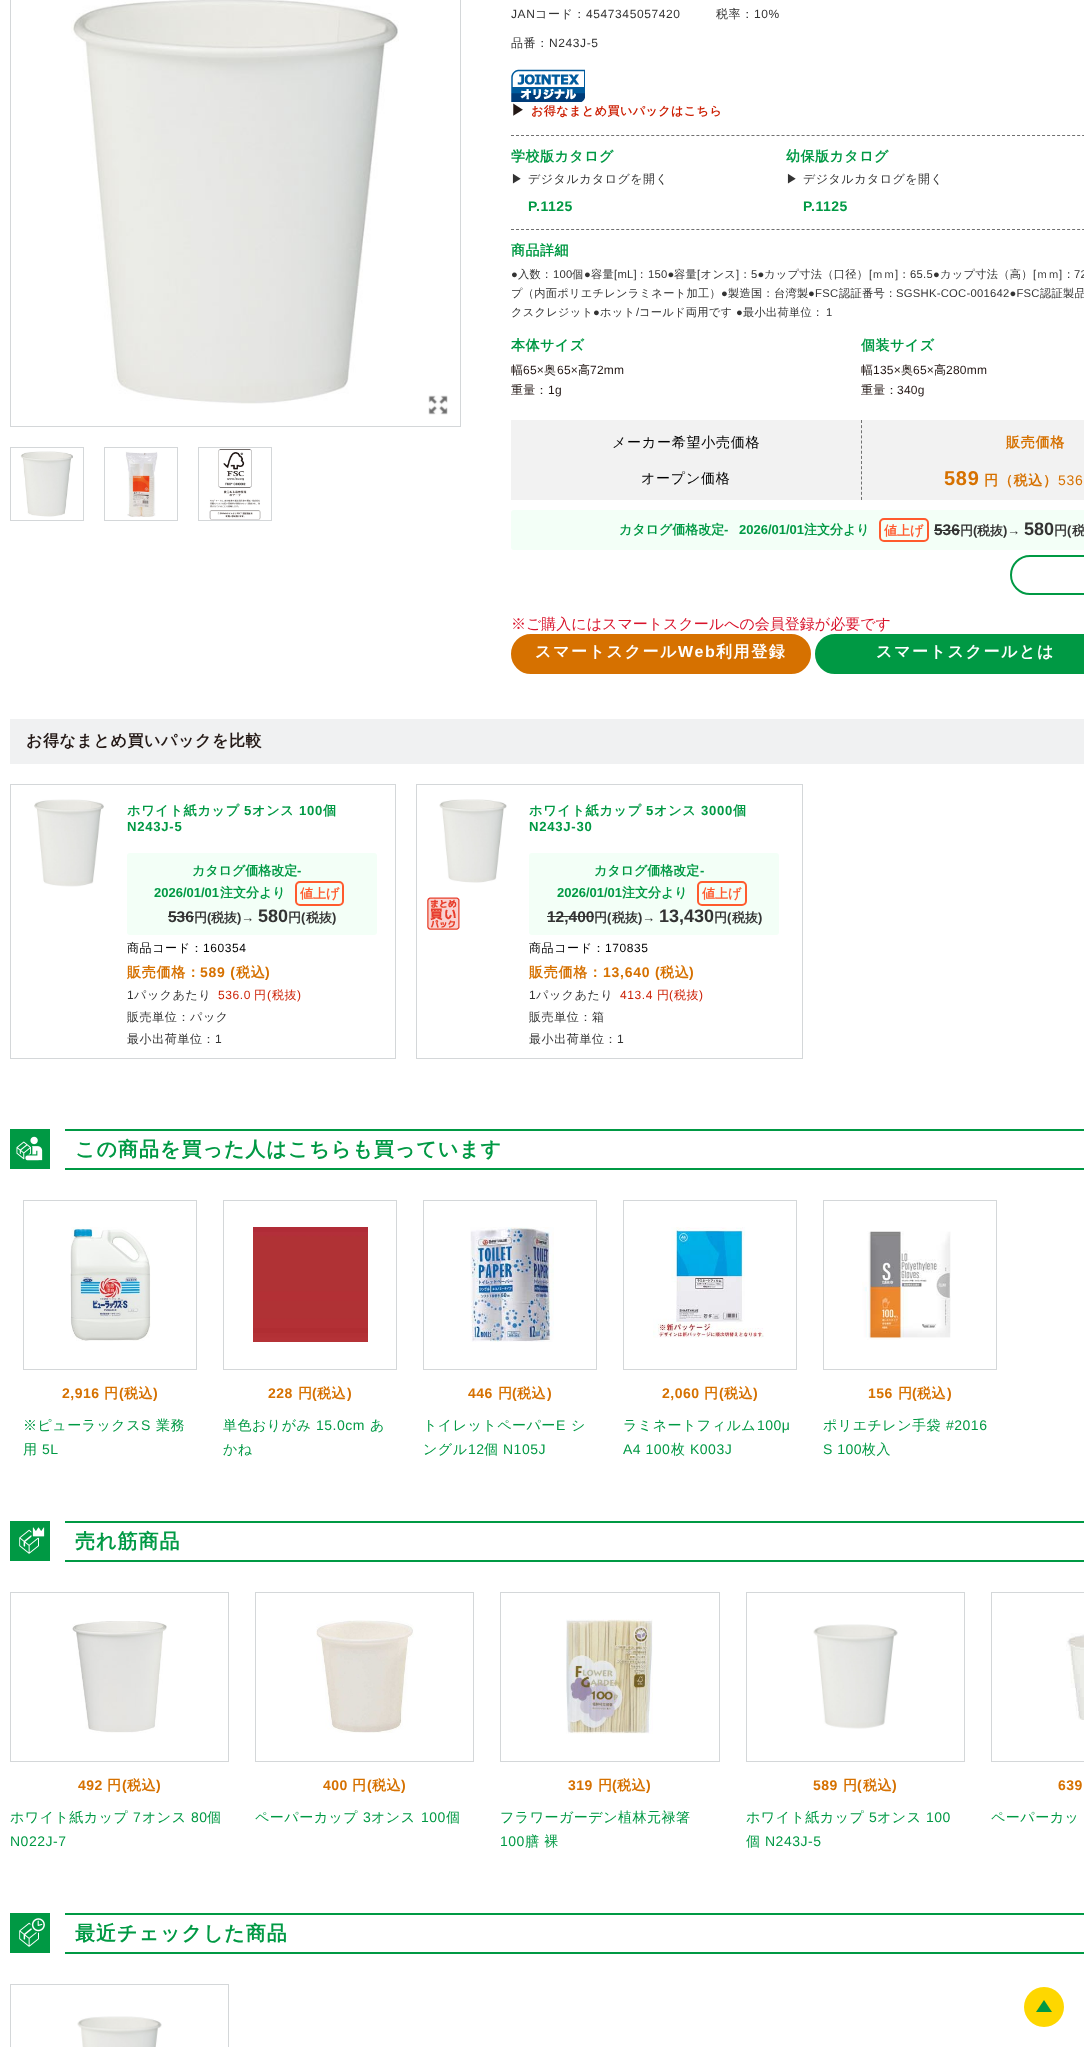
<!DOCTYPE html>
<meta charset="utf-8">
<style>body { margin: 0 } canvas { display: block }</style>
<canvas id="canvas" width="1084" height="2047"></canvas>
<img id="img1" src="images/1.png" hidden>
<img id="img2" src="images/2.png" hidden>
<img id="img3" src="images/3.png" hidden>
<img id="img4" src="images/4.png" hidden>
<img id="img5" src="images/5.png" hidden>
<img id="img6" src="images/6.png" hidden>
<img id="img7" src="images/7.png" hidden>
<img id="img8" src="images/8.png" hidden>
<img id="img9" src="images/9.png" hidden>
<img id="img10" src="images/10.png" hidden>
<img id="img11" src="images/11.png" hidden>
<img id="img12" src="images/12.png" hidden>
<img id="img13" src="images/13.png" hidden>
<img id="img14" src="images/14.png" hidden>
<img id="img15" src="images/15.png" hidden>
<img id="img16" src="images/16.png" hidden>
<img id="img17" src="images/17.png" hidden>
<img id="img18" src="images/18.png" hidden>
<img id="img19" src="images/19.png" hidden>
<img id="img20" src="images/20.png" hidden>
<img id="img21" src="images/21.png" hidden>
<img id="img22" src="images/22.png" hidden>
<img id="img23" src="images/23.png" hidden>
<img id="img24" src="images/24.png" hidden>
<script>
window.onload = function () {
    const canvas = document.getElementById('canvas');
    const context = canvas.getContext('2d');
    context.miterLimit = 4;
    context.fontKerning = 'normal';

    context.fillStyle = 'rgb(255, 255, 255)';
    context.fillRect(0, 0, 1084, 2047);
    context.strokeStyle = 'rgb(212, 215, 217)';
    context.strokeRect(10.5, -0.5, 450, 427);
    context.drawImage(document.getElementById('img1'), 71, 0, 328, 404);
    context.drawImage(document.getElementById('img2'), 428, 395, 20, 20);
    context.strokeRect(10.5, 447.5, 73, 73);
    context.drawImage(document.getElementById('img3'), 11, 448, 72, 72);
    context.strokeRect(104.5, 447.5, 73, 73);
    context.drawImage(document.getElementById('img4'), 105, 448, 72, 72);
    context.strokeRect(198.5, 447.5, 73, 73);
    context.drawImage(document.getElementById('img5'), 199, 448, 72, 72);
    context.drawImage(document.getElementById('img6'), 511, 69, 74, 33);
    context.beginPath();
    context.moveTo(511, 135.5);
    context.lineTo(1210, 135.5);
    context.strokeStyle = 'rgb(112, 112, 112)';
    context.setLineDash([3, 2.01]);
    context.stroke();
    context.beginPath();
    context.moveTo(511, 229.5);
    context.lineTo(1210, 229.5);
    context.stroke();
    context.fillStyle = 'rgb(242, 242, 242)';
    context.fillRect(511, 420, 573, 80);
    context.beginPath();
    context.moveTo(861.5, 420);
    context.lineTo(861.5, 500);
    context.setLineDash([3, 2.13]);
    context.stroke();
    context.fillStyle = 'rgb(243, 255, 247)';
    context.beginPath();
    context.roundRect(511, 510, 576, 40, 3);
    context.fill();
    context.beginPath();
    context.roundRect(880, 519, 48, 22, 4);
    context.strokeStyle = 'rgb(255, 91, 46)';
    context.lineWidth = 2;
    context.setLineDash([]);
    context.stroke();
    context.fillStyle = 'rgb(51, 51, 51)';
    context.fillRect(934, 530, 26, 1);
    context.beginPath();
    context.roundRect(1011, 556, 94, 38, 19);
    context.strokeStyle = 'rgb(0, 153, 68)';
    context.stroke();
    context.fillStyle = 'rgb(214, 113, 0)';
    context.beginPath();
    context.roundRect(512, 635, 298, 38, 19);
    context.fill();
    context.strokeStyle = 'rgb(214, 113, 0)';
    context.stroke();
    context.fillStyle = 'rgb(0, 153, 68)';
    context.beginPath();
    context.roundRect(816, 635, 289, 38, 19);
    context.fill();
    context.strokeStyle = 'rgb(0, 153, 68)';
    context.stroke();
    context.fillStyle = 'rgb(240, 241, 242)';
    context.fillRect(10, 719, 1074, 45);
    context.strokeStyle = 'rgb(212, 215, 217)';
    context.lineWidth = 1;
    context.strokeRect(10.5, 784.5, 385, 274);
    context.drawImage(document.getElementById('img7'), 34, 799, 70, 88);
    context.fillStyle = 'rgb(243, 255, 247)';
    context.beginPath();
    context.roundRect(127, 853, 250, 82, 3);
    context.fill();
    context.beginPath();
    context.roundRect(296, 882, 47, 23, 4);
    context.strokeStyle = 'rgb(255, 91, 46)';
    context.lineWidth = 2;
    context.stroke();
    context.fillStyle = 'rgb(51, 51, 51)';
    context.fillRect(168, 916, 26, 1);
    context.strokeStyle = 'rgb(212, 215, 217)';
    context.lineWidth = 1;
    context.strokeRect(416.5, 784.5, 386, 274);
    context.drawImage(document.getElementById('img8'), 439, 799, 68, 84);
    context.drawImage(document.getElementById('img9'), 427, 897, 33, 33);
    context.fillStyle = 'rgb(243, 255, 247)';
    context.beginPath();
    context.roundRect(529, 853, 250, 82, 3);
    context.fill();
    context.beginPath();
    context.roundRect(698, 882, 48, 23, 4);
    context.strokeStyle = 'rgb(255, 91, 46)';
    context.lineWidth = 2;
    context.stroke();
    context.fillStyle = 'rgb(51, 51, 51)';
    context.fillRect(547, 916, 47, 1);
    context.drawImage(document.getElementById('img10'), 10, 1129, 40, 40);
    context.fillStyle = 'rgb(0, 153, 68)';
    context.fillRect(65, 1129, 1019, 2);
    context.fillRect(65, 1168, 1019, 2);
    context.strokeStyle = 'rgb(212, 215, 217)';
    context.lineWidth = 1;
    context.strokeRect(23.5, 1200.5, 173, 169);
    context.drawImage(document.getElementById('img11'), 70, 1227, 81, 114);
    context.strokeRect(223.5, 1200.5, 173, 169);
    context.drawImage(document.getElementById('img12'), 253, 1227, 115, 115);
    context.strokeRect(423.5, 1200.5, 173, 169);
    context.drawImage(document.getElementById('img13'), 470, 1227, 84, 115);
    context.strokeRect(623.5, 1200.5, 173, 169);
    context.drawImage(document.getElementById('img14'), 653, 1227, 111, 111);
    context.strokeRect(823.5, 1200.5, 173, 169);
    context.drawImage(document.getElementById('img15'), 862, 1231, 89, 109);
    context.drawImage(document.getElementById('img16'), 10, 1521, 40, 40);
    context.fillRect(65, 1521, 1019, 2);
    context.fillRect(65, 1560, 1019, 2);
    context.strokeRect(10.5, 1592.5, 218, 169);
    context.drawImage(document.getElementById('img17'), 72, 1621, 95, 112);
    context.strokeRect(255.5, 1592.5, 218, 169);
    context.drawImage(document.getElementById('img18'), 316, 1620, 98, 113);
    context.strokeRect(500.5, 1592.5, 219, 169);
    context.drawImage(document.getElementById('img19'), 566, 1619, 87, 115);
    context.strokeRect(746.5, 1592.5, 218, 169);
    context.drawImage(document.getElementById('img20'), 813, 1624, 85, 105);
    context.strokeRect(991.5, 1592.5, 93, 169);
    context.drawImage(document.getElementById('img21'), 1066, 1633, 18, 87);
    context.drawImage(document.getElementById('img22'), 10, 1913, 40, 40);
    context.fillRect(65, 1913, 1019, 2);
    context.fillRect(65, 1952, 1019, 2);
    context.strokeRect(10.5, 1984.5, 218, 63);
    context.drawImage(document.getElementById('img23'), 77, 2016, 85, 31);
    context.drawImage(document.getElementById('img24'), 1024, 1987, 40, 40);
    context.letterSpacing = '0.6px';
    context.font = '12px Liberation Sans';
    context.fillStyle = 'rgb(51, 51, 51)';
    context.fillText('JAN', 511, 18);
    context.font = '500 12px WenQuanYi Zen Hei';
    context.fillText('コード：', 535, 18);
    context.font = '12px Liberation Sans';
    context.fillText('4547345057420', 586, 18);
    context.font = '500 12px WenQuanYi Zen Hei';
    context.fillText('税率：', 716, 18);
    context.font = '12px Liberation Sans';
    context.fillText('10%', 754, 18);
    context.font = '500 12px WenQuanYi Zen Hei';
    context.fillText('品番：', 511, 47);
    context.font = '12px Liberation Sans';
    context.fillText('N243J-5', 549, 47);
    context.letterSpacing = '0.5px';
    context.font = 'bold 14px WenQuanYi Zen Hei';
    context.fillStyle = 'rgb(35, 24, 21)';
    context.fillText('▶︎', 511, 115);
    context.font = 'bold 12px WenQuanYi Zen Hei';
    context.fillStyle = 'rgb(204, 31, 3)';
    context.fillText('お得なまとめ買いパックはこちら', 531, 115);
    context.font = 'bold 14px WenQuanYi Zen Hei';
    context.fillStyle = 'rgb(0, 153, 68)';
    context.fillText('学校版カタログ', 511, 161);
    context.font = '500 12px WenQuanYi Zen Hei';
    context.fillStyle = 'rgb(51, 51, 51)';
    context.fillText('▶︎', 511, 183);
    context.fillText('デジタルカタログを開く', 528, 183);
    context.font = 'bold 14px Liberation Sans';
    context.fillStyle = 'rgb(0, 153, 68)';
    context.fillText('P.1125', 528, 211);
    context.font = 'bold 14px WenQuanYi Zen Hei';
    context.fillText('幼保版カタログ', 786, 161);
    context.font = '500 12px WenQuanYi Zen Hei';
    context.fillStyle = 'rgb(51, 51, 51)';
    context.fillText('▶︎', 786, 183);
    context.fillText('デジタルカタログを開く', 803, 183);
    context.font = 'bold 14px Liberation Sans';
    context.fillStyle = 'rgb(0, 153, 68)';
    context.fillText('P.1125', 803, 211);
    context.font = 'bold 14px WenQuanYi Zen Hei';
    context.fillText('商品詳細', 511, 255);
    context.letterSpacing = '0.25px';
    context.font = '500 11.25px WenQuanYi Zen Hei';
    context.fillStyle = 'rgb(51, 51, 51)';
    context.fillText('入数：', 518, 278);
    context.fillText('個', 572, 278);
    context.fillText('容量', 591, 278);
    context.font = '11.25px Liberation Sans';
    context.fillText('[mL]', 614, 278);
    context.font = '500 11.25px WenQuanYi Zen Hei';
    context.fillText('容量 オンス ：', 674, 278);
    context.fillText('カップ寸法（口径） ｍｍ ：', 764, 278);
    context.fillText('カップ寸法（高） ｍｍ ：', 940, 278);
    context.font = '11.25px Liberation Sans';
    context.fillText('●', 511, 278);
    context.fillText('100', 553, 278);
    context.fillText('●', 584, 278);
    context.font = '500 11.25px WenQuanYi Zen Hei';
    context.fillText('：', 636, 278);
    context.font = '11.25px Liberation Sans';
    context.fillText('150●', 648, 278);
    context.fillText('[', 697, 278);
    context.fillText(']', 736, 278);
    context.fillText('5●', 751, 278);
    context.fillText('[', 869, 278);
    context.fillText(']', 895, 278);
    context.fillText('65.5●', 910, 278);
    context.fillText('[', 1033, 278);
    context.fillText(']', 1059, 278);
    context.fillText('72', 1074, 278);
    context.font = '500 11.25px WenQuanYi Zen Hei';
    context.fillText('プ（内面ポリエチレンラミネート加工）', 511, 297);
    context.font = '11.25px Liberation Sans';
    context.fillText('●', 721, 297);
    context.font = '500 11.25px WenQuanYi Zen Hei';
    context.fillText('製造国：台湾製', 728, 297);
    context.font = '11.25px Liberation Sans';
    context.fillText('●FSC', 808, 297);
    context.font = '500 11.25px WenQuanYi Zen Hei';
    context.fillText('認証番号：', 839, 297);
    context.font = '11.25px Liberation Sans';
    context.fillText('SGSHK-COC-001642●FSC', 896, 297);
    context.font = '500 11.25px WenQuanYi Zen Hei';
    context.fillText('認証製品', 1040, 297);
    context.fillText('クスクレジット', 511, 316);
    context.fillText('ホット コールド両用です', 600, 316);
    context.fillText('最小出荷単位：', 743, 316);
    context.font = '11.25px Liberation Sans';
    context.fillText('●', 593, 316);
    context.fillText('/', 636, 316);
    context.fillText('●', 736, 316);
    context.fillText('1', 826, 316);
    context.letterSpacing = '0.5px';
    context.font = 'bold 14px WenQuanYi Zen Hei';
    context.fillStyle = 'rgb(0, 153, 68)';
    context.fillText('本体サイズ', 511, 350);
    context.letterSpacing = '0.25px';
    context.font = '500 12px WenQuanYi Zen Hei';
    context.fillStyle = 'rgb(35, 24, 21)';
    context.fillText('幅', 511, 374);
    context.font = '12px Liberation Sans';
    context.fillText('65×', 523, 374);
    context.font = '500 12px WenQuanYi Zen Hei';
    context.fillText('奥', 544, 374);
    context.font = '12px Liberation Sans';
    context.fillText('65×', 557, 374);
    context.font = '500 12px WenQuanYi Zen Hei';
    context.fillText('高', 578, 374);
    context.font = '12px Liberation Sans';
    context.fillText('72mm', 590, 374);
    context.font = '500 12px WenQuanYi Zen Hei';
    context.fillText('重量：', 511, 394);
    context.font = '12px Liberation Sans';
    context.fillText('1g', 548, 394);
    context.letterSpacing = '0.5px';
    context.font = 'bold 14px WenQuanYi Zen Hei';
    context.fillStyle = 'rgb(0, 153, 68)';
    context.fillText('個装サイズ', 861, 350);
    context.letterSpacing = '0.25px';
    context.font = '500 12px WenQuanYi Zen Hei';
    context.fillStyle = 'rgb(35, 24, 21)';
    context.fillText('幅', 861, 374);
    context.font = '12px Liberation Sans';
    context.fillText('135×', 873, 374);
    context.font = '500 12px WenQuanYi Zen Hei';
    context.fillText('奥', 901, 374);
    context.font = '12px Liberation Sans';
    context.fillText('65×', 913, 374);
    context.font = '500 12px WenQuanYi Zen Hei';
    context.fillText('高', 934, 374);
    context.font = '12px Liberation Sans';
    context.fillText('280mm', 946, 374);
    context.font = '500 12px WenQuanYi Zen Hei';
    context.fillText('重量：', 861, 394);
    context.font = '12px Liberation Sans';
    context.fillText('340g', 897, 394);
    context.letterSpacing = '0.75px';
    context.font = '500 14px WenQuanYi Zen Hei';
    context.fillStyle = 'rgb(0, 0, 0)';
    context.fillText('メーカー希望小売価格', 612, 447);
    context.fillText('オープン価格', 641, 483);
    context.font = 'bold 14px WenQuanYi Zen Hei';
    context.fillStyle = 'rgb(214, 113, 0)';
    context.fillText('販売価格', 1006, 447);
    context.font = 'bold 20px Liberation Sans';
    context.fillText('589', 944, 485);
    context.font = 'bold 14px WenQuanYi Zen Hei';
    context.fillText('円（税込）', 984, 485);
    context.font = '14px Liberation Sans';
    context.fillText('536', 1058, 485);
    context.letterSpacing = '0px';
    context.font = 'bold 13px WenQuanYi Zen Hei';
    context.fillStyle = 'rgb(0, 153, 68)';
    context.fillText('カタログ価格改定', 619, 534);
    context.font = 'bold 13px Liberation Sans';
    context.fillText('-', 724, 534);
    context.fillText('2026/01/01', 739, 534);
    context.font = 'bold 13px WenQuanYi Zen Hei';
    context.fillText('注文分より', 804, 534);
    context.fillStyle = 'rgb(255, 91, 46)';
    context.fillText('値上げ', 884, 535);
    context.font = 'bold 15.5px Liberation Sans';
    context.fillStyle = 'rgb(51, 51, 51)';
    context.fillText('536', 934, 535);
    context.font = 'bold 13px WenQuanYi Zen Hei';
    context.fillText('円', 960, 535);
    context.font = 'bold 13px Liberation Sans';
    context.fillText('(', 973, 535);
    context.font = 'bold 13px WenQuanYi Zen Hei';
    context.fillText('税抜', 977, 535);
    context.font = 'bold 13px Liberation Sans';
    context.fillText(')→', 1003, 535);
    context.font = 'bold 18px Liberation Sans';
    context.fillText('580', 1024, 535);
    context.font = 'bold 13px WenQuanYi Zen Hei';
    context.fillText('円', 1054, 535);
    context.font = 'bold 13px Liberation Sans';
    context.fillText('(', 1067, 535);
    context.font = 'bold 13px WenQuanYi Zen Hei';
    context.fillText('税', 1072, 535);
    context.font = '500 15px WenQuanYi Zen Hei';
    context.fillStyle = 'rgb(217, 20, 44)';
    context.fillText('※ご購入にはスマートスクールへの会員登録が必要です', 511, 629);
    context.letterSpacing = '1.6px';
    context.font = 'bold 16px WenQuanYi Zen Hei';
    context.fillStyle = 'rgb(255, 255, 255)';
    context.fillText('スマートスクール', 535, 657);
    context.font = 'bold 16px Liberation Sans';
    context.fillText('Web', 678, 657);
    context.font = 'bold 16px WenQuanYi Zen Hei';
    context.fillText('利用登録', 716, 657);
    context.fillText('スマートスクールとは', 876, 657);
    context.letterSpacing = '0.6px';
    context.fillStyle = 'rgb(35, 24, 21)';
    context.fillText('お得なまとめ買いパックを比較', 26, 746);
    context.letterSpacing = '0.75px';
    context.font = 'bold 13.1px WenQuanYi Zen Hei';
    context.fillStyle = 'rgb(0, 153, 68)';
    context.fillText('ホワイト紙カップ', 127, 815);
    context.font = 'bold 13.1px Liberation Sans';
    context.fillText('5', 244, 815);
    context.font = 'bold 13.1px WenQuanYi Zen Hei';
    context.fillText('オンス', 252, 815);
    context.font = 'bold 13.1px Liberation Sans';
    context.fillText('100', 299, 815);
    context.font = 'bold 13.1px WenQuanYi Zen Hei';
    context.fillText('個', 323, 815);
    context.font = 'bold 13.1px Liberation Sans';
    context.fillText('N243J-5', 127, 831);
    context.letterSpacing = '0px';
    context.font = 'bold 13px WenQuanYi Zen Hei';
    context.fillText('カタログ価格改定', 192, 875);
    context.font = 'bold 13px Liberation Sans';
    context.fillText('-', 297, 875);
    context.fillText('2026/01/01', 154, 897);
    context.font = 'bold 13px WenQuanYi Zen Hei';
    context.fillText('注文分より', 220, 897);
    context.fillStyle = 'rgb(255, 91, 46)';
    context.fillText('値上げ', 300, 898);
    context.font = 'bold 15.5px Liberation Sans';
    context.fillStyle = 'rgb(51, 51, 51)';
    context.fillText('536', 168, 922);
    context.font = 'bold 13px WenQuanYi Zen Hei';
    context.fillText('円', 194, 922);
    context.font = 'bold 13px Liberation Sans';
    context.fillText('(', 207, 922);
    context.font = 'bold 13px WenQuanYi Zen Hei';
    context.fillText('税抜', 211, 922);
    context.font = 'bold 13px Liberation Sans';
    context.fillText(')→', 237, 922);
    context.font = 'bold 18px Liberation Sans';
    context.fillText('580', 258, 922);
    context.font = 'bold 13px WenQuanYi Zen Hei';
    context.fillText('円', 288, 922);
    context.font = 'bold 13px Liberation Sans';
    context.fillText('(', 301, 922);
    context.font = 'bold 13px WenQuanYi Zen Hei';
    context.fillText('税抜', 306, 922);
    context.font = 'bold 13px Liberation Sans';
    context.fillText(')', 332, 922);
    context.letterSpacing = '0.6px';
    context.font = '500 12px WenQuanYi Zen Hei';
    context.fillStyle = 'rgb(0, 0, 0)';
    context.fillText('商品コード：', 127, 952);
    context.font = '12px Liberation Sans';
    context.fillText('160354', 203, 952);
    context.letterSpacing = '0.75px';
    context.font = 'bold 14px WenQuanYi Zen Hei';
    context.fillStyle = 'rgb(214, 113, 0)';
    context.fillText('販売価格：', 127, 977);
    context.font = 'bold 14px Liberation Sans';
    context.fillText('589 (', 200, 977);
    context.font = 'bold 14px WenQuanYi Zen Hei';
    context.fillText('税込', 236, 977);
    context.font = 'bold 14px Liberation Sans';
    context.fillText(')', 265, 977);
    context.letterSpacing = '0.6px';
    context.font = '12px Liberation Sans';
    context.fillStyle = 'rgb(51, 51, 51)';
    context.fillText('1', 127, 999);
    context.font = '500 12px WenQuanYi Zen Hei';
    context.fillText('パックあたり', 134, 999);
    context.font = '12px Liberation Sans';
    context.fillStyle = 'rgb(204, 31, 3)';
    context.fillText('536.0', 218, 999);
    context.font = '500 12px WenQuanYi Zen Hei';
    context.fillText('円', 254, 999);
    context.font = '12px Liberation Sans';
    context.fillText('(', 267, 999);
    context.font = '500 12px WenQuanYi Zen Hei';
    context.fillText('税抜', 272, 999);
    context.font = '12px Liberation Sans';
    context.fillText(')', 297, 999);
    context.font = '500 12px WenQuanYi Zen Hei';
    context.fillStyle = 'rgb(51, 51, 51)';
    context.fillText('販売単位：パック', 127, 1021);
    context.fillText('最小出荷単位：', 127, 1043);
    context.font = '12px Liberation Sans';
    context.fillText('1', 215, 1043);
    context.letterSpacing = '0.75px';
    context.font = 'bold 13.1px WenQuanYi Zen Hei';
    context.fillStyle = 'rgb(0, 153, 68)';
    context.fillText('ホワイト紙カップ', 529, 815);
    context.font = 'bold 13.1px Liberation Sans';
    context.fillText('5', 646, 815);
    context.font = 'bold 13.1px WenQuanYi Zen Hei';
    context.fillText('オンス', 654, 815);
    context.font = 'bold 13.1px Liberation Sans';
    context.fillText('3000', 701, 815);
    context.font = 'bold 13.1px WenQuanYi Zen Hei';
    context.fillText('個', 733, 815);
    context.font = 'bold 13.1px Liberation Sans';
    context.fillText('N243J-30', 529, 831);
    context.letterSpacing = '0px';
    context.font = 'bold 13px WenQuanYi Zen Hei';
    context.fillText('カタログ価格改定', 594, 875);
    context.font = 'bold 13px Liberation Sans';
    context.fillText('-', 700, 875);
    context.fillText('2026/01/01', 557, 897);
    context.font = 'bold 13px WenQuanYi Zen Hei';
    context.fillText('注文分より', 622, 897);
    context.fillStyle = 'rgb(255, 91, 46)';
    context.fillText('値上げ', 702, 898);
    context.font = 'bold 15.5px Liberation Sans';
    context.fillStyle = 'rgb(51, 51, 51)';
    context.fillText('12,400', 547, 922);
    context.font = 'bold 13px WenQuanYi Zen Hei';
    context.fillText('円', 594, 922);
    context.font = 'bold 13px Liberation Sans';
    context.fillText('(', 607, 922);
    context.font = 'bold 13px WenQuanYi Zen Hei';
    context.fillText('税抜', 612, 922);
    context.font = 'bold 13px Liberation Sans';
    context.fillText(')→', 638, 922);
    context.font = 'bold 18px Liberation Sans';
    context.fillText('13,430', 659, 922);
    context.font = 'bold 13px WenQuanYi Zen Hei';
    context.fillText('円', 714, 922);
    context.font = 'bold 13px Liberation Sans';
    context.fillText('(', 727, 922);
    context.font = 'bold 13px WenQuanYi Zen Hei';
    context.fillText('税抜', 732, 922);
    context.font = 'bold 13px Liberation Sans';
    context.fillText(')', 758, 922);
    context.letterSpacing = '0.6px';
    context.font = '500 12px WenQuanYi Zen Hei';
    context.fillStyle = 'rgb(0, 0, 0)';
    context.fillText('商品コード：', 529, 952);
    context.font = '12px Liberation Sans';
    context.fillText('170835', 605, 952);
    context.letterSpacing = '0.75px';
    context.font = 'bold 14px WenQuanYi Zen Hei';
    context.fillStyle = 'rgb(214, 113, 0)';
    context.fillText('販売価格：', 529, 977);
    context.font = 'bold 14px Liberation Sans';
    context.fillText('13,640 (', 603, 977);
    context.font = 'bold 14px WenQuanYi Zen Hei';
    context.fillText('税込', 660, 977);
    context.font = 'bold 14px Liberation Sans';
    context.fillText(')', 689, 977);
    context.letterSpacing = '0.6px';
    context.font = '12px Liberation Sans';
    context.fillStyle = 'rgb(51, 51, 51)';
    context.fillText('1', 529, 999);
    context.font = '500 12px WenQuanYi Zen Hei';
    context.fillText('パックあたり', 536, 999);
    context.font = '12px Liberation Sans';
    context.fillStyle = 'rgb(204, 31, 3)';
    context.fillText('413.4', 620, 999);
    context.font = '500 12px WenQuanYi Zen Hei';
    context.fillText('円', 657, 999);
    context.font = '12px Liberation Sans';
    context.fillText('(', 669, 999);
    context.font = '500 12px WenQuanYi Zen Hei';
    context.fillText('税抜', 674, 999);
    context.font = '12px Liberation Sans';
    context.fillText(')', 699, 999);
    context.font = '500 12px WenQuanYi Zen Hei';
    context.fillStyle = 'rgb(51, 51, 51)';
    context.fillText('販売単位：箱', 529, 1021);
    context.fillText('最小出荷単位：', 529, 1043);
    context.font = '12px Liberation Sans';
    context.fillText('1', 617, 1043);
    context.letterSpacing = '1px';
    context.font = 'bold 20px WenQuanYi Zen Hei';
    context.fillStyle = 'rgb(0, 153, 68)';
    context.fillText('この商品を買った人はこちらも買っています', 75, 1156);
    context.letterSpacing = '0.5px';
    context.font = 'bold 14px Liberation Sans';
    context.fillStyle = 'rgb(214, 113, 0)';
    context.fillText('2,916', 62, 1398);
    context.font = 'bold 14px WenQuanYi Zen Hei';
    context.fillText('円', 104, 1398);
    context.font = 'bold 14px Liberation Sans';
    context.fillText('(', 119, 1398);
    context.font = 'bold 14px WenQuanYi Zen Hei';
    context.fillText('税込', 124, 1398);
    context.font = 'bold 14px Liberation Sans';
    context.fillText(')', 153, 1398);
    context.font = '500 14px WenQuanYi Zen Hei';
    context.fillStyle = 'rgb(0, 153, 68)';
    context.fillText('※ピューラックス', 23, 1430);
    context.font = '14px Liberation Sans';
    context.fillText('S', 141, 1430);
    context.font = '500 14px WenQuanYi Zen Hei';
    context.fillText('業務', 156, 1430);
    context.fillText('用', 23, 1454);
    context.font = '14px Liberation Sans';
    context.fillText('5L', 42, 1454);
    context.font = 'bold 14px Liberation Sans';
    context.fillStyle = 'rgb(214, 113, 0)';
    context.fillText('228', 268, 1398);
    context.font = 'bold 14px WenQuanYi Zen Hei';
    context.fillText('円', 298, 1398);
    context.font = 'bold 14px Liberation Sans';
    context.fillText('(', 312, 1398);
    context.font = 'bold 14px WenQuanYi Zen Hei';
    context.fillText('税込', 317, 1398);
    context.font = 'bold 14px Liberation Sans';
    context.fillText(')', 347, 1398);
    context.font = '500 14px WenQuanYi Zen Hei';
    context.fillStyle = 'rgb(0, 153, 68)';
    context.fillText('単色おりがみ', 223, 1430);
    context.font = '14px Liberation Sans';
    context.fillText('15.0cm', 316, 1430);
    context.font = '500 14px WenQuanYi Zen Hei';
    context.fillText('あ', 370, 1430);
    context.fillText('かね', 223, 1454);
    context.font = 'bold 14px Liberation Sans';
    context.fillStyle = 'rgb(214, 113, 0)';
    context.fillText('446', 468, 1398);
    context.font = 'bold 14px WenQuanYi Zen Hei';
    context.fillText('円', 498, 1398);
    context.font = 'bold 14px Liberation Sans';
    context.fillText('(', 512, 1398);
    context.font = 'bold 14px WenQuanYi Zen Hei';
    context.fillText('税込', 517, 1398);
    context.font = 'bold 14px Liberation Sans';
    context.fillText(')', 547, 1398);
    context.font = '500 14px WenQuanYi Zen Hei';
    context.fillStyle = 'rgb(0, 153, 68)';
    context.fillText('トイレットペーパー', 423, 1430);
    context.font = '14px Liberation Sans';
    context.fillText('E', 556, 1430);
    context.font = '500 14px WenQuanYi Zen Hei';
    context.fillText('シ', 571, 1430);
    context.fillText('ングル', 423, 1454);
    context.font = '14px Liberation Sans';
    context.fillText('12', 468, 1454);
    context.font = '500 14px WenQuanYi Zen Hei';
    context.fillText('個', 484, 1454);
    context.font = '14px Liberation Sans';
    context.fillText('N105J', 503, 1454);
    context.font = 'bold 14px Liberation Sans';
    context.fillStyle = 'rgb(214, 113, 0)';
    context.fillText('2,060', 662, 1398);
    context.font = 'bold 14px WenQuanYi Zen Hei';
    context.fillText('円', 704, 1398);
    context.font = 'bold 14px Liberation Sans';
    context.fillText('(', 719, 1398);
    context.font = 'bold 14px WenQuanYi Zen Hei';
    context.fillText('税込', 724, 1398);
    context.font = 'bold 14px Liberation Sans';
    context.fillText(')', 753, 1398);
    context.font = '500 14px WenQuanYi Zen Hei';
    context.fillStyle = 'rgb(0, 153, 68)';
    context.fillText('ラミネートフィルム', 623, 1430);
    context.font = '14px Liberation Sans';
    context.fillText('100μ', 757, 1430);
    context.fillText('A4 100', 623, 1454);
    context.font = '500 14px WenQuanYi Zen Hei';
    context.fillText('枚', 671, 1454);
    context.font = '14px Liberation Sans';
    context.fillText('K003J', 690, 1454);
    context.font = 'bold 14px Liberation Sans';
    context.fillStyle = 'rgb(214, 113, 0)';
    context.fillText('156', 868, 1398);
    context.font = 'bold 14px WenQuanYi Zen Hei';
    context.fillText('円', 898, 1398);
    context.font = 'bold 14px Liberation Sans';
    context.fillText('(', 912, 1398);
    context.font = 'bold 14px WenQuanYi Zen Hei';
    context.fillText('税込', 917, 1398);
    context.font = 'bold 14px Liberation Sans';
    context.fillText(')', 947, 1398);
    context.font = '500 14px WenQuanYi Zen Hei';
    context.fillStyle = 'rgb(0, 153, 68)';
    context.fillText('ポリエチレン手袋', 823, 1430);
    context.font = '14px Liberation Sans';
    context.fillText('#2016', 946, 1430);
    context.fillText('S 100', 823, 1454);
    context.font = '500 14px WenQuanYi Zen Hei';
    context.fillText('枚入', 862, 1454);
    context.letterSpacing = '1px';
    context.font = 'bold 20px WenQuanYi Zen Hei';
    context.fillText('売れ筋商品', 75, 1548);
    context.letterSpacing = '0.5px';
    context.font = 'bold 14px Liberation Sans';
    context.fillStyle = 'rgb(214, 113, 0)';
    context.fillText('492', 78, 1790);
    context.font = 'bold 14px WenQuanYi Zen Hei';
    context.fillText('円', 107, 1790);
    context.font = 'bold 14px Liberation Sans';
    context.fillText('(', 122, 1790);
    context.font = 'bold 14px WenQuanYi Zen Hei';
    context.fillText('税込', 127, 1790);
    context.font = 'bold 14px Liberation Sans';
    context.fillText(')', 156, 1790);
    context.font = '500 14px WenQuanYi Zen Hei';
    context.fillStyle = 'rgb(0, 153, 68)';
    context.fillText('ホワイト紙カップ', 10, 1822);
    context.font = '14px Liberation Sans';
    context.fillText('7', 133, 1822);
    context.font = '500 14px WenQuanYi Zen Hei';
    context.fillText('オンス', 142, 1822);
    context.font = '14px Liberation Sans';
    context.fillText('80', 191, 1822);
    context.font = '500 14px WenQuanYi Zen Hei';
    context.fillText('個', 207, 1822);
    context.font = '14px Liberation Sans';
    context.fillText('N022J-7', 10, 1846);
    context.font = 'bold 14px Liberation Sans';
    context.fillStyle = 'rgb(214, 113, 0)';
    context.fillText('400', 323, 1790);
    context.font = 'bold 14px WenQuanYi Zen Hei';
    context.fillText('円', 352, 1790);
    context.font = 'bold 14px Liberation Sans';
    context.fillText('(', 367, 1790);
    context.font = 'bold 14px WenQuanYi Zen Hei';
    context.fillText('税込', 372, 1790);
    context.font = 'bold 14px Liberation Sans';
    context.fillText(')', 401, 1790);
    context.font = '500 14px WenQuanYi Zen Hei';
    context.fillStyle = 'rgb(0, 153, 68)';
    context.fillText('ペーパーカップ', 255, 1822);
    context.font = '14px Liberation Sans';
    context.fillText('3', 363, 1822);
    context.font = '500 14px WenQuanYi Zen Hei';
    context.fillText('オンス', 371, 1822);
    context.font = '14px Liberation Sans';
    context.fillText('100', 421, 1822);
    context.font = '500 14px WenQuanYi Zen Hei';
    context.fillText('個', 446, 1822);
    context.font = 'bold 14px Liberation Sans';
    context.fillStyle = 'rgb(214, 113, 0)';
    context.fillText('319', 568, 1790);
    context.font = 'bold 14px WenQuanYi Zen Hei';
    context.fillText('円', 598, 1790);
    context.font = 'bold 14px Liberation Sans';
    context.fillText('(', 612, 1790);
    context.font = 'bold 14px WenQuanYi Zen Hei';
    context.fillText('税込', 617, 1790);
    context.font = 'bold 14px Liberation Sans';
    context.fillText(')', 646, 1790);
    context.font = '500 14px WenQuanYi Zen Hei';
    context.fillStyle = 'rgb(0, 153, 68)';
    context.fillText('フラワーガーデン植林元禄箸', 500, 1822);
    context.font = '14px Liberation Sans';
    context.fillText('100', 500, 1846);
    context.font = '500 14px WenQuanYi Zen Hei';
    context.fillText('膳 裸', 525, 1846);
    context.font = 'bold 14px Liberation Sans';
    context.fillStyle = 'rgb(214, 113, 0)';
    context.fillText('589', 813, 1790);
    context.font = 'bold 14px WenQuanYi Zen Hei';
    context.fillText('円', 843, 1790);
    context.font = 'bold 14px Liberation Sans';
    context.fillText('(', 857, 1790);
    context.font = 'bold 14px WenQuanYi Zen Hei';
    context.fillText('税込', 863, 1790);
    context.font = 'bold 14px Liberation Sans';
    context.fillText(')', 892, 1790);
    context.font = '500 14px WenQuanYi Zen Hei';
    context.fillStyle = 'rgb(0, 153, 68)';
    context.fillText('ホワイト紙カップ', 746, 1822);
    context.font = '14px Liberation Sans';
    context.fillText('5', 869, 1822);
    context.font = '500 14px WenQuanYi Zen Hei';
    context.fillText('オンス', 877, 1822);
    context.font = '14px Liberation Sans';
    context.fillText('100', 926, 1822);
    context.font = '500 14px WenQuanYi Zen Hei';
    context.fillText('個', 746, 1846);
    context.font = '14px Liberation Sans';
    context.fillText('N243J-5', 765, 1846);
    context.font = 'bold 14px Liberation Sans';
    context.fillStyle = 'rgb(214, 113, 0)';
    context.fillText('639', 1058, 1790);
    context.font = '500 14px WenQuanYi Zen Hei';
    context.fillStyle = 'rgb(0, 153, 68)';
    context.fillText('ペーパーカッ', 991, 1822);
    context.letterSpacing = '1px';
    context.font = 'bold 20px WenQuanYi Zen Hei';
    context.fillText('最近チェックした商品', 75, 1940);
};
</script>
